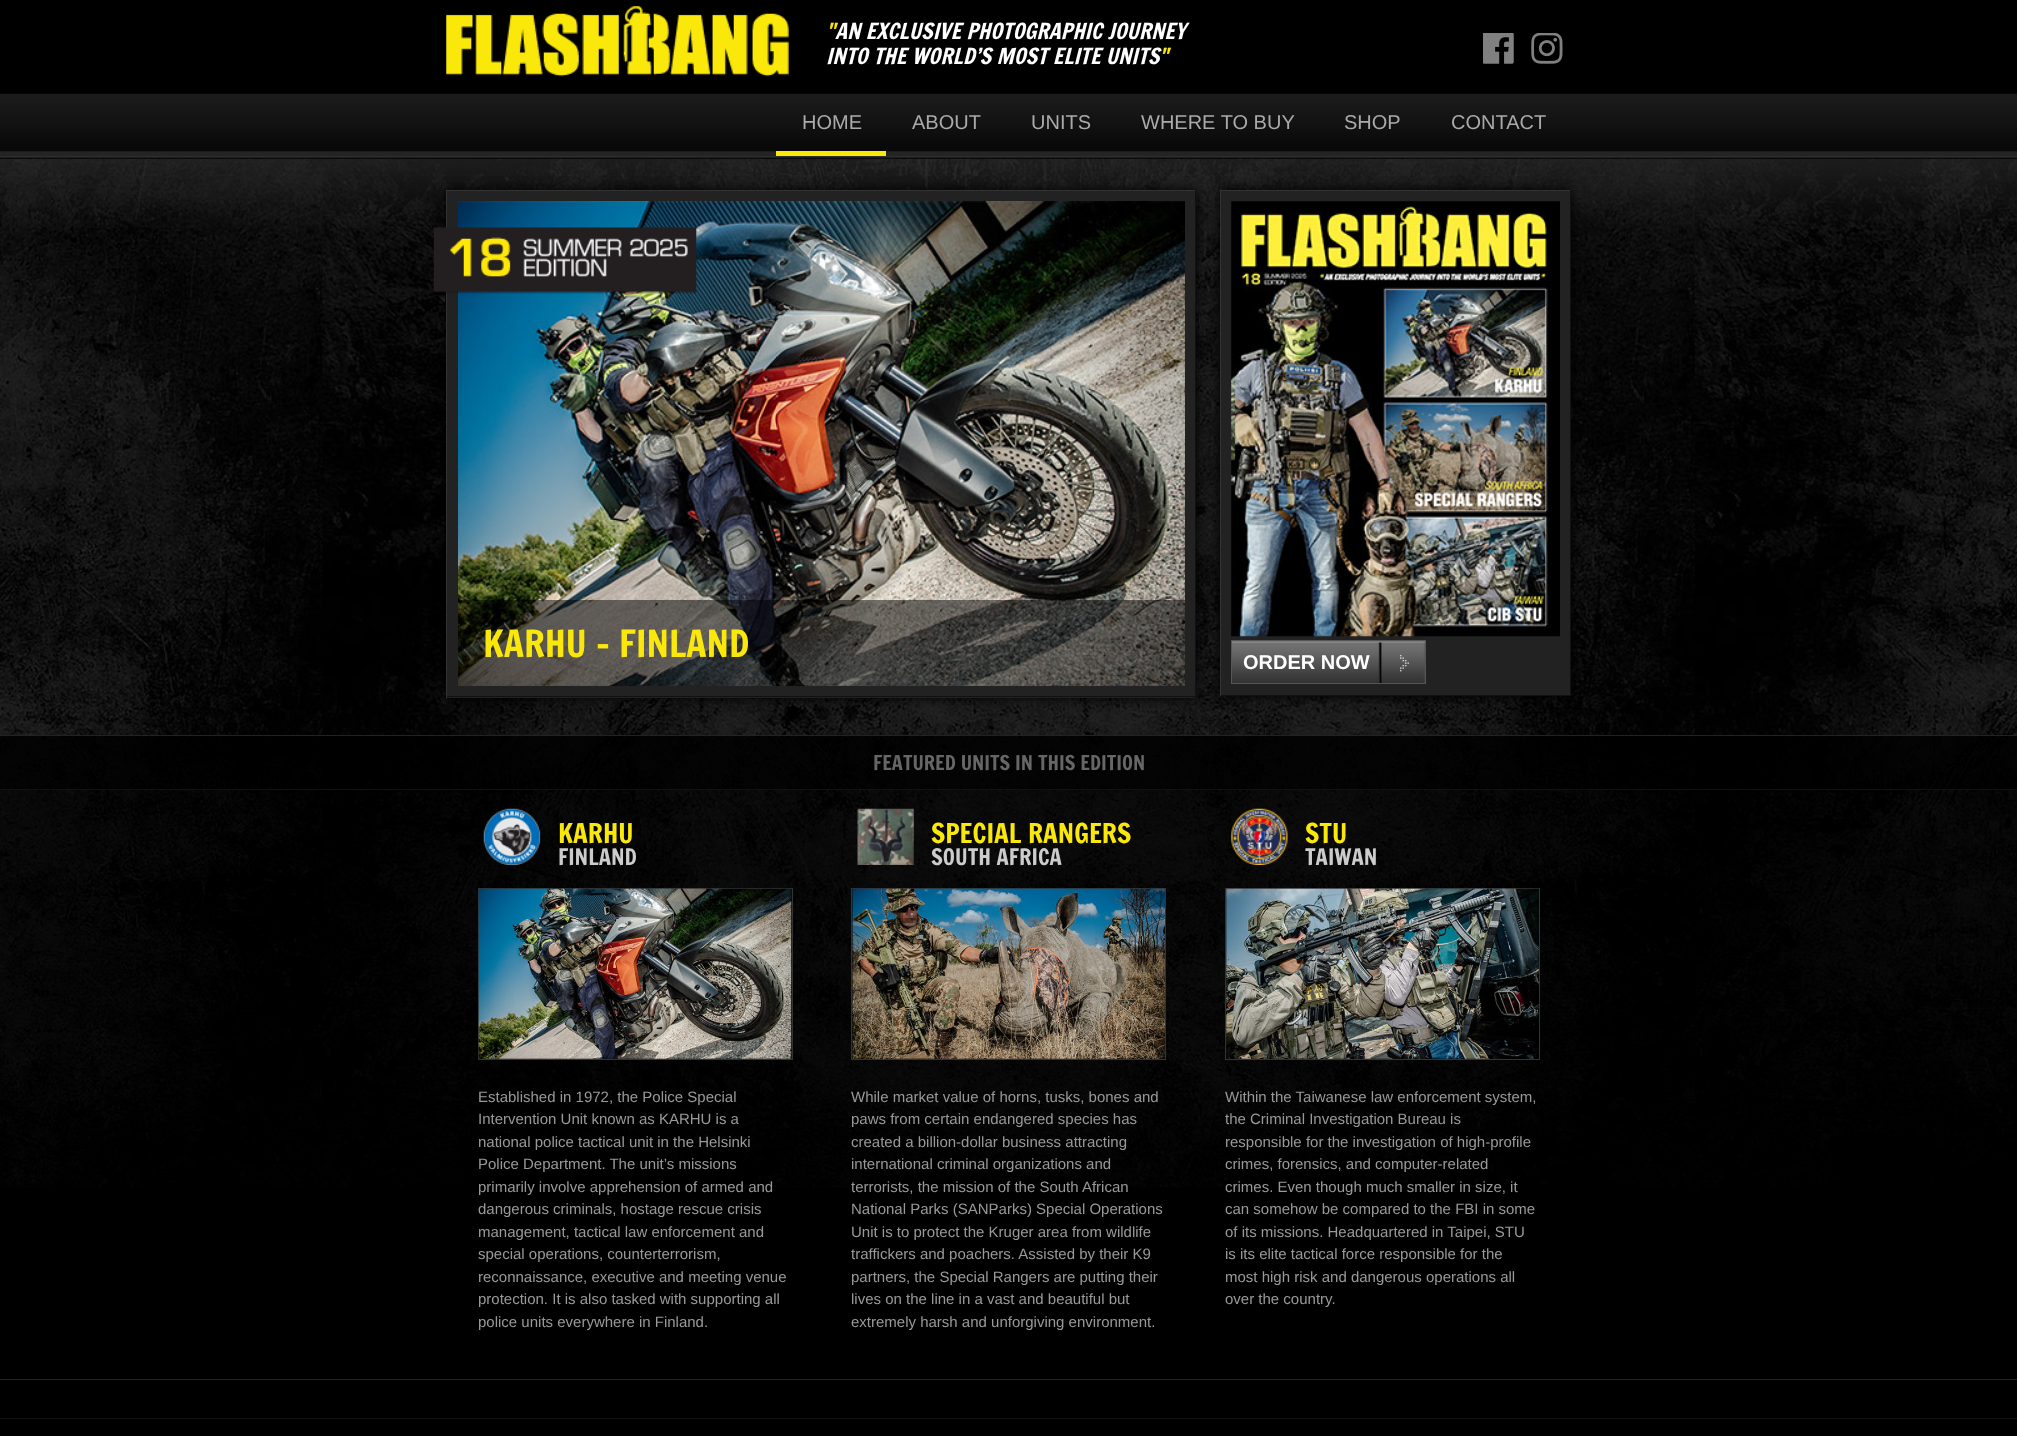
<!DOCTYPE html>
<meta charset="utf-8">
<style>body { margin: 0 } canvas { display: block }</style>
<canvas id="canvas" width="2017" height="1436"></canvas>
<img id="img1" src="images/1.png" hidden>
<img id="img2" src="images/2.png" hidden>
<img id="img3" src="images/3.png" hidden>
<img id="img4" src="images/4.png" hidden>
<img id="img5" src="images/5.png" hidden>
<img id="img6" src="images/6.png" hidden>
<img id="img7" src="images/8.png" hidden>
<img id="img8" src="images/7.png" hidden>
<img id="img9" src="images/9.png" hidden>
<img id="img10" src="images/10.png" hidden>
<img id="img11" src="images/11.png" hidden>
<img id="img12" src="images/12.png" hidden>
<img id="img13" src="images/13.png" hidden>
<img id="img14" src="images/14.png" hidden>
<img id="img15" src="images/15.png" hidden>
<img id="img16" src="images/16.png" hidden>
<script>
window.onload = function () {
    const canvas = document.getElementById('canvas');
    const context = canvas.getContext('2d');
    context.miterLimit = 4;
    context.fontKerning = 'normal';

    context.fillStyle = 'rgb(0, 0, 0)';
    context.fillRect(0, 0, 2017, 1436);
    context.drawImage(document.getElementById('img1'), 0, 158, 2017, 1030);
    context.drawImage(document.getElementById('img2'), 446, 6, 343, 71);
    context.drawImage(document.getElementById('img3'), 1483, 33, 31, 31);
    context.drawImage(document.getElementById('img4'), 1531, 33, 32, 31);
    context.drawImage(document.getElementById('img5'), 0, 93, 2017, 66);
    context.fillStyle = 'rgb(250, 232, 11)';
    context.fillRect(776, 151, 110, 5);
    context.drawImage(document.getElementById('img6'), 0, 158, 2017, 70);
    context.fillStyle = 'rgb(0, 0, 0)';
    context.filter = 'blur(6px)';
    context.beginPath();
    context.rect(446, 190, 750, 508);
    context.fill();
    context.filter = 'none';
    context.fillStyle = 'rgb(34, 34, 34)';
    context.fillRect(447, 191, 748, 507);
    context.fillStyle = 'rgb(51, 51, 51)';
    context.fillRect(446, 190, 750, 1);
    context.fillStyle = 'rgb(17, 17, 17)';
    context.fillRect(1195, 190, 1, 508);
    context.fillRect(446, 696, 750, 1);
    context.fillStyle = 'rgb(51, 51, 51)';
    context.fillRect(446, 190, 1, 508);
    context.drawImage(document.getElementById('img7'), 458, 201, 727, 485);
    context.drawImage(document.getElementById('img8'), 433, 227, 264, 76);
    context.fillStyle = 'rgba(0, 0, 0, 0.5)';
    context.fillRect(458, 600, 727, 86);
    context.fillStyle = 'rgba(0, 0, 0, 0.9)';
    context.beginPath();
    context.arc(793, 713, 7, 0, 2 * Math.PI);
    context.fill();
    context.fillStyle = 'rgba(0, 0, 0, 0.5)';
    context.beginPath();
    context.arc(822, 713, 7, 0, 2 * Math.PI);
    context.fill();
    context.beginPath();
    context.arc(851, 713, 7, 0, 2 * Math.PI);
    context.fill();
    context.fillStyle = 'rgb(0, 0, 0)';
    context.filter = 'blur(6px)';
    context.beginPath();
    context.rect(1220, 190, 351, 506);
    context.fill();
    context.filter = 'none';
    context.fillStyle = 'rgb(34, 34, 34)';
    context.fillRect(1221, 191, 349, 504);
    context.fillStyle = 'rgb(51, 51, 51)';
    context.fillRect(1220, 190, 351, 1);
    context.fillStyle = 'rgb(17, 17, 17)';
    context.fillRect(1570, 190, 1, 506);
    context.fillRect(1220, 695, 351, 1);
    context.fillStyle = 'rgb(51, 51, 51)';
    context.fillRect(1220, 190, 1, 506);
    context.drawImage(document.getElementById('img9'), 1231, 201, 329, 436);
    context.drawImage(document.getElementById('img10'), 1232, 641, 193, 42);
    context.strokeStyle = 'rgb(85, 85, 85)';
    context.strokeRect(1231.5, 640.5, 194, 43);
    context.fillStyle = 'rgba(0, 0, 0, 0.6)';
    context.fillRect(0, 736, 2017, 452);
    context.fillStyle = 'rgb(34, 34, 34)';
    context.fillRect(0, 735, 2017, 1);
    context.fillRect(0, 1379, 2017, 1);
    context.fillStyle = 'rgba(0, 0, 0, 0.6)';
    context.fillRect(0, 736, 2017, 53);
    context.fillStyle = 'rgb(17, 17, 17)';
    context.fillRect(0, 789, 2017, 1);
    context.drawImage(document.getElementById('img11'), 483, 808, 58, 57);
    context.strokeStyle = 'rgb(51, 51, 51)';
    context.strokeRect(478.5, 888.5, 314, 171);
    context.drawImage(document.getElementById('img12'), 478, 888, 314, 171);
    context.drawImage(document.getElementById('img13'), 857, 808, 57, 57);
    context.strokeRect(851.5, 888.5, 314, 171);
    context.drawImage(document.getElementById('img14'), 852, 888, 313, 171);
    context.drawImage(document.getElementById('img15'), 1231, 808, 57, 57);
    context.strokeRect(1225.5, 888.5, 314, 171);
    context.drawImage(document.getElementById('img16'), 1226, 888, 313, 171);
    context.fillRect(0, 1418, 2017, 1);
    context.font = 'italic 21.7px Francois One';
    context.fillStyle = 'rgb(250, 232, 11)';
    context.fillText('"', 826, 39);
    context.fillStyle = 'rgb(255, 255, 255)';
    context.fillText('AN EXCLUSIVE PHOTOGRAPHIC JOURNEY', 835, 39);
    context.fillText('INTO THE WORLD’S MOST ELITE UNITS', 826, 64);
    context.fillStyle = 'rgb(250, 232, 11)';
    context.fillText('"', 1159, 64);
    context.font = '20px Liberation Sans';
    context.fillStyle = 'rgb(170, 170, 170)';
    context.fillText('HOME', 802, 129);
    context.fillText('ABOUT', 912, 129);
    context.fillText('UNITS', 1031, 129);
    context.fillText('WHERE TO BUY', 1141, 129);
    context.fillText('SHOP', 1344, 129);
    context.fillText('CONTACT', 1451, 129);
    context.font = '36.75px Francois One';
    context.fillStyle = 'rgb(250, 232, 11)';
    context.fillText('KARHU - FINLAND', 483, 657);
    context.font = 'bold 20px Liberation Sans';
    context.fillStyle = 'rgb(255, 255, 255)';
    context.fillText('ORDER NOW', 1243, 669);
    context.font = '20px Francois One';
    context.fillStyle = 'rgb(102, 102, 102)';
    context.fillText('FEATURED UNITS IN THIS EDITION', 873, 770);
    context.font = '26.75px Francois One';
    context.fillStyle = 'rgb(250, 232, 11)';
    context.fillText('KARHU', 558, 843);
    context.font = '22.25px Francois One';
    context.fillStyle = 'rgb(204, 204, 204)';
    context.fillText('FINLAND', 558, 865);
    context.font = '15px Liberation Sans';
    context.fillStyle = 'rgb(153, 153, 153)';
    context.fillText('Established in 1972, the Police Special', 478, 1102);
    context.fillText('Intervention Unit known as KARHU is a', 478, 1124);
    context.fillText('national police tactical unit in the Helsinki', 478, 1147);
    context.fillText('Police Department. The unit’s missions', 478, 1169);
    context.fillText('primarily involve apprehension of armed and', 478, 1192);
    context.fillText('dangerous criminals, hostage rescue crisis', 478, 1214);
    context.fillText('management, tactical law enforcement and', 478, 1237);
    context.fillText('special operations, counterterrorism,', 478, 1259);
    context.fillText('reconnaissance, executive and meeting venue', 478, 1282);
    context.fillText('protection. It is also tasked with supporting all', 478, 1304);
    context.fillText('police units everywhere in Finland.', 478, 1327);
    context.font = '26.75px Francois One';
    context.fillStyle = 'rgb(250, 232, 11)';
    context.fillText('SPECIAL RANGERS', 931, 843);
    context.font = '22.25px Francois One';
    context.fillStyle = 'rgb(204, 204, 204)';
    context.fillText('SOUTH AFRICA', 931, 865);
    context.font = '15px Liberation Sans';
    context.fillStyle = 'rgb(153, 153, 153)';
    context.fillText('While market value of horns, tusks, bones and', 851, 1102);
    context.fillText('paws from certain endangered species has', 851, 1124);
    context.fillText('created a billion-dollar business attracting', 851, 1147);
    context.fillText('international criminal organizations and', 851, 1169);
    context.fillText('terrorists, the mission of the South African', 851, 1192);
    context.fillText('National Parks (SANParks) Special Operations', 851, 1214);
    context.fillText('Unit is to protect the Kruger area from wildlife', 851, 1237);
    context.fillText('traffickers and poachers. Assisted by their K9', 851, 1259);
    context.fillText('partners, the Special Rangers are putting their', 851, 1282);
    context.fillText('lives on the line in a vast and beautiful but', 851, 1304);
    context.fillText('extremely harsh and unforgiving environment.', 851, 1327);
    context.font = '26.75px Francois One';
    context.fillStyle = 'rgb(250, 232, 11)';
    context.fillText('STU', 1305, 843);
    context.font = '22.25px Francois One';
    context.fillStyle = 'rgb(204, 204, 204)';
    context.fillText('TAIWAN', 1305, 865);
    context.font = '15px Liberation Sans';
    context.fillStyle = 'rgb(153, 153, 153)';
    context.fillText('Within the Taiwanese law enforcement system,', 1225, 1102);
    context.fillText('the Criminal Investigation Bureau is', 1225, 1124);
    context.fillText('responsible for the investigation of high-profile', 1225, 1147);
    context.fillText('crimes, forensics, and computer-related', 1225, 1169);
    context.fillText('crimes. Even though much smaller in size, it', 1225, 1192);
    context.fillText('can somehow be compared to the FBI in some', 1225, 1214);
    context.fillText('of its missions. Headquartered in Taipei, STU', 1225, 1237);
    context.fillText('is its elite tactical force responsible for the', 1225, 1259);
    context.fillText('most high risk and dangerous operations all', 1225, 1282);
    context.fillText('over the country.', 1225, 1304);
};
</script>
